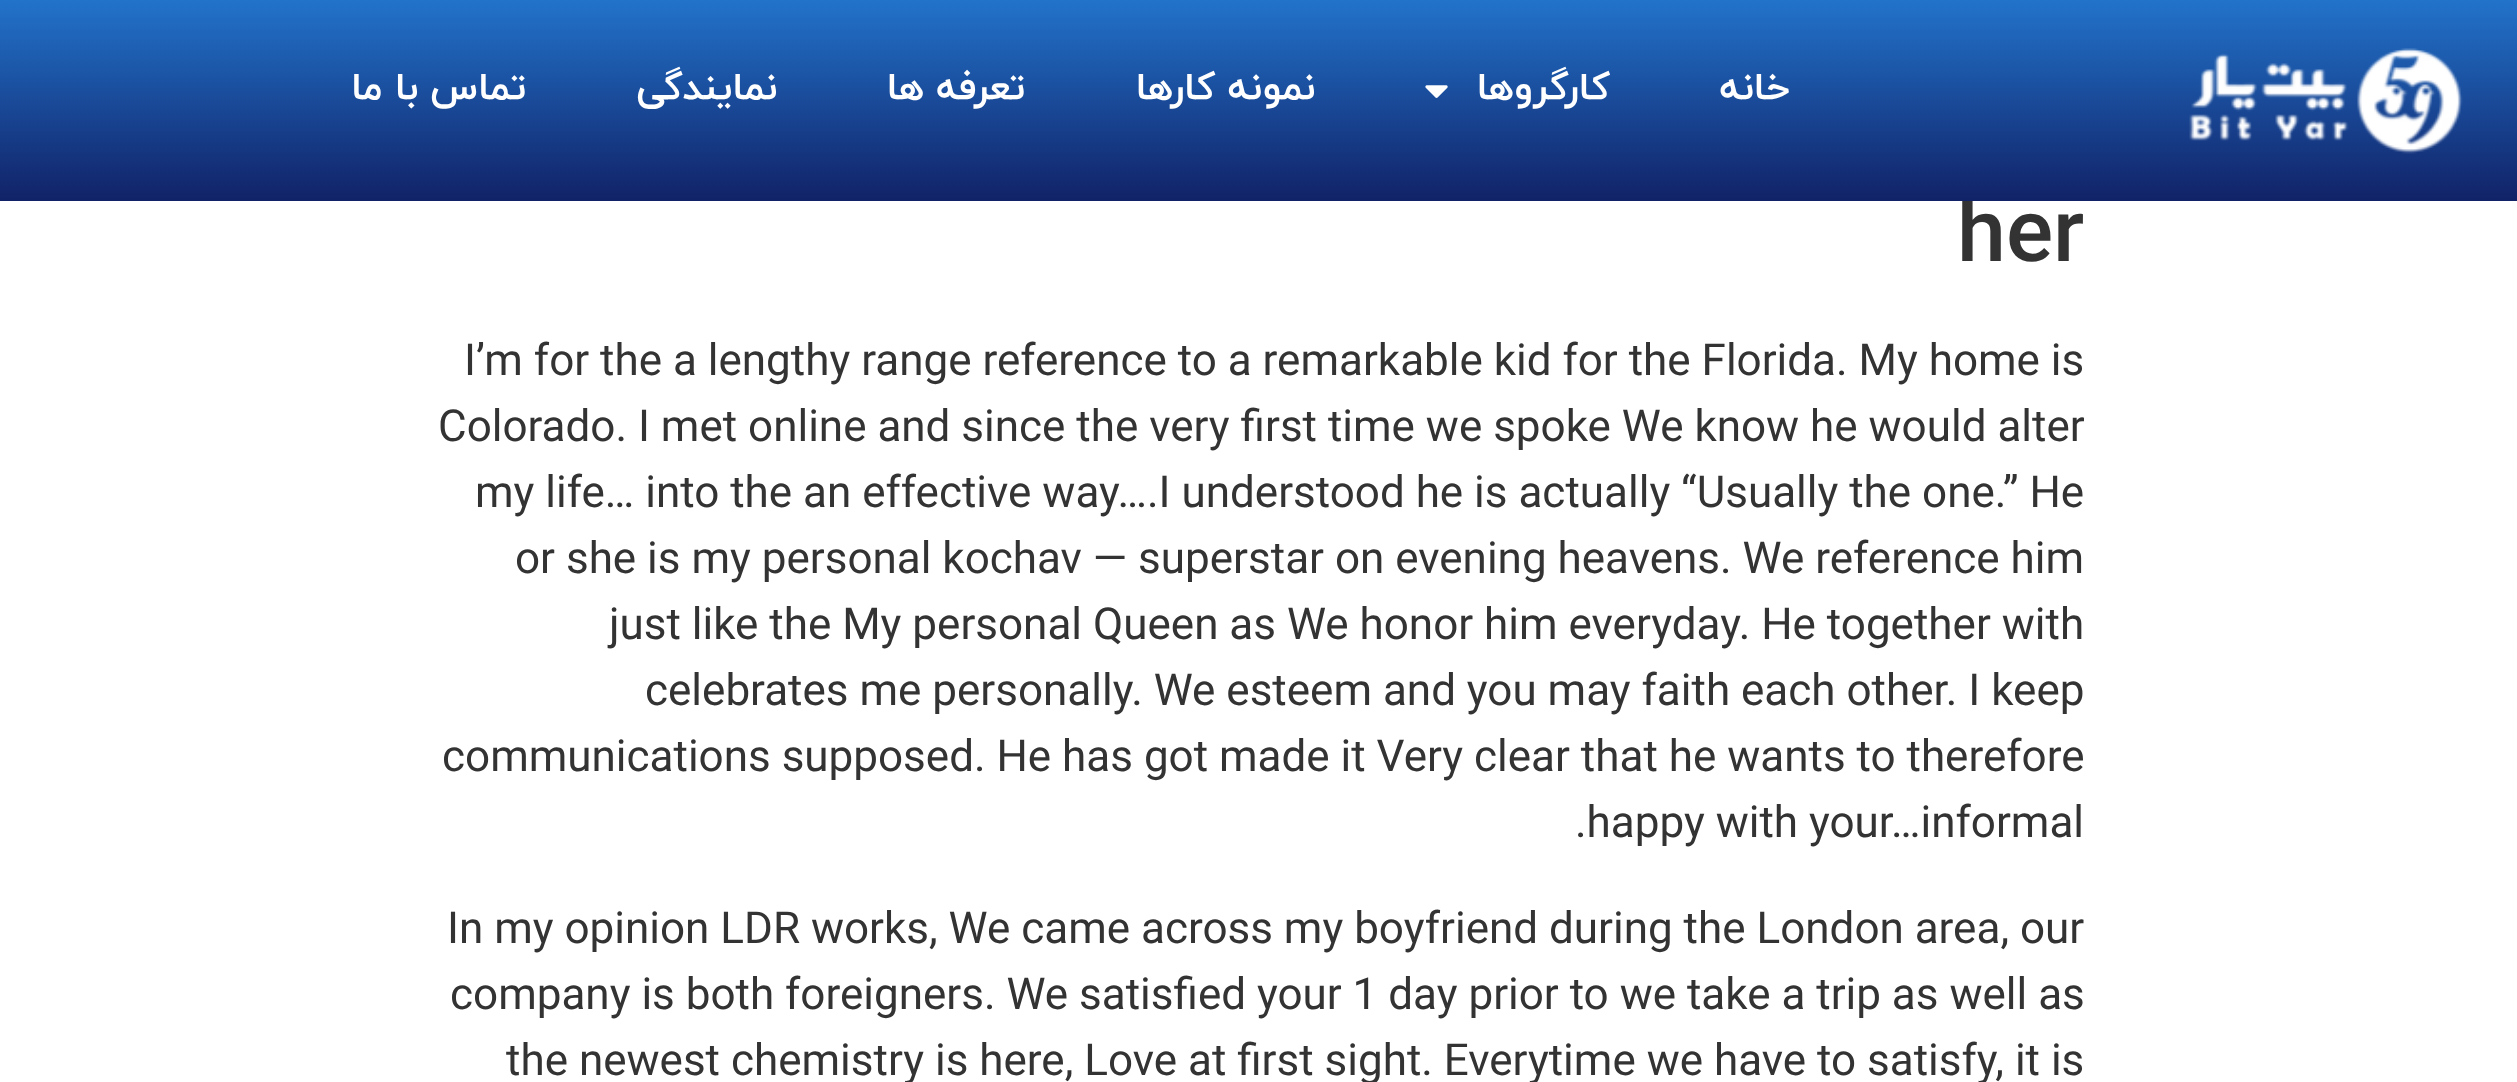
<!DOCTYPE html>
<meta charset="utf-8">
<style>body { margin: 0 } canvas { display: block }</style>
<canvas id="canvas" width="2517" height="1082"></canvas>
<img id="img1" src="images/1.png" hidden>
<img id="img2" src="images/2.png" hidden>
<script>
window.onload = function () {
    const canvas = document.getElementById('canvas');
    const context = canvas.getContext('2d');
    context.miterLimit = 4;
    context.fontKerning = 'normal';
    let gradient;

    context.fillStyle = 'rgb(255, 255, 255)';
    context.fillRect(0, 0, 2517, 1082);
    context.font = '500 88px Roboto';
    context.fillStyle = 'rgb(51, 51, 51)';
    context.fillText('her', 1957, 261);
    gradient = context.createLinearGradient(1260, 201, 1260, 0);
    gradient.addColorStop(0, 'rgb(17, 34, 103)');
    gradient.addColorStop(1, 'rgb(34, 115, 203)');
    context.fillStyle = gradient;
    context.fillRect(0, 0, 2517, 201);
    context.direction = 'rtl';
    context.font = 'bold 38.5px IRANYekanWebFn';
    context.fillStyle = 'rgb(255, 255, 255)';
    context.fillText('تماس با ما', 526, 99);
    context.fillText('نمایندگی', 777, 99);
    context.fillText('تعرفه ها', 1025, 99);
    context.fillText('نمونه کارها', 1315, 99);
    context.drawImage(document.getElementById('img1'), 1425, 85, 23, 13);
    context.fillText('کارگروها', 1610, 99);
    context.fillText('خانه', 1790, 99);
    context.drawImage(document.getElementById('img2'), 2189, 48, 274, 106);
    context.direction = 'ltr';
    context.font = '44px Roboto';
    context.fillStyle = 'rgb(51, 51, 51)';
    context.fillText('I’m for the a lengthy range reference to a remarkable kid for the Florida. My home is', 464, 375);
    context.fillText('Colorado. I met online and since the very first time we spoke We know he would alter', 438, 441);
    context.fillText('my life… into the an effective way….I understood he is actually “Usually the one.” He', 475, 507);
    context.fillText('or she is my personal kochav — superstar on evening heavens. We reference him', 515, 573);
    context.fillText('just like the My personal Queen as We honor him everyday. He together with', 609, 639);
    context.fillText('celebrates me personally. We esteem and you may faith each other. I keep', 645, 705);
    context.fillText('communications supposed. He has got made it Very clear that he wants to therefore', 442, 771);
    context.fillText('.happy with your…informal', 1575, 837);
    context.fillText('In my opinion LDR works, We came across my boyfriend during the London area, our', 447, 943);
    context.fillText('company is both foreigners. We satisfied your 1 day prior to we take a trip as well as', 450, 1009);
    context.fillText('the newest chemistry is here, Love at first sight. Everytime we have to satisfy, it is', 506, 1075);
};
</script>
